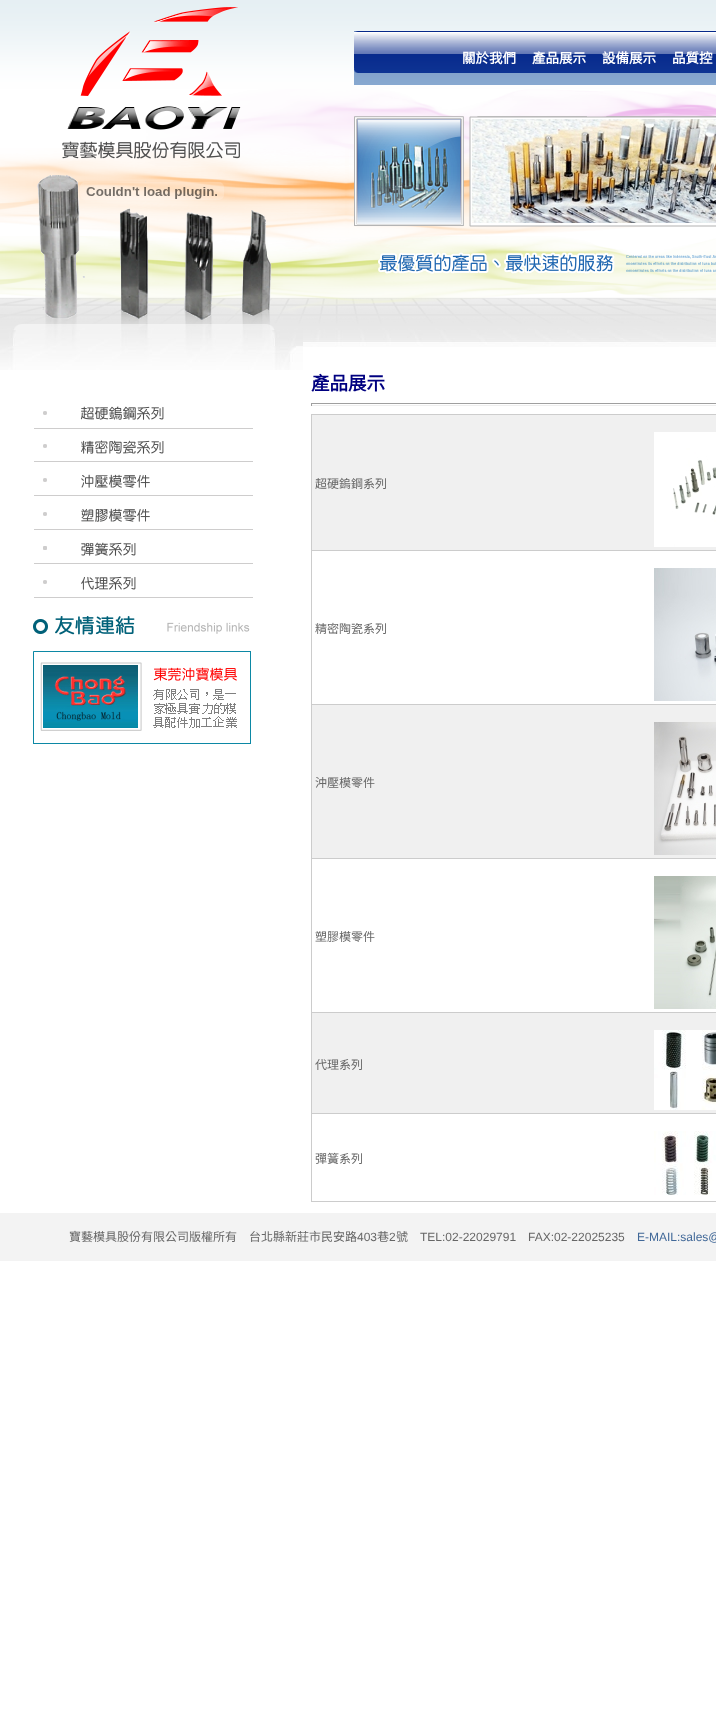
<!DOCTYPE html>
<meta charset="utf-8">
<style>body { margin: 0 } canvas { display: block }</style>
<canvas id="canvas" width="716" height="1723"></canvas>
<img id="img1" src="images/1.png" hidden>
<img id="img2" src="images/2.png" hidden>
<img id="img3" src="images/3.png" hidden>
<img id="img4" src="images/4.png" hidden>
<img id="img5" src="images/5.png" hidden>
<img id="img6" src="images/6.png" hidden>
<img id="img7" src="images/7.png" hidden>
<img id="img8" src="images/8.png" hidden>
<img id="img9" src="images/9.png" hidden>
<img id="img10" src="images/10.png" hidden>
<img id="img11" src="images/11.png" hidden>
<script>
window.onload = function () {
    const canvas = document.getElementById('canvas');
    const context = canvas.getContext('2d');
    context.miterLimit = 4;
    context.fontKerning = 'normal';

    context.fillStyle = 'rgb(255, 255, 255)';
    context.fillRect(0, 0, 716, 1723);
    context.drawImage(document.getElementById('img1'), 0, 0, 716, 330);
    context.drawImage(document.getElementById('img2'), 80, 182, 144, 18);
    context.drawImage(document.getElementById('img3'), 0, 330, 303, 40);
    context.drawImage(document.getElementById('img4'), 33, 406, 220, 338);
    context.drawImage(document.getElementById('img5'), 303, 330, 413, 17);
    context.fillStyle = 'rgb(159, 159, 159)';
    context.fillRect(311, 403, 405, 1);
    context.fillStyle = 'rgb(238, 238, 238)';
    context.fillRect(311, 405, 405, 1);
    context.fillStyle = 'rgb(159, 159, 159)';
    context.fillRect(311, 403, 1, 3);
    context.fillStyle = 'rgb(204, 204, 204)';
    context.fillRect(311, 414, 405, 788);
    context.fillStyle = 'rgb(240, 240, 240)';
    context.fillRect(312, 415, 404, 135);
    context.drawImage(document.getElementById('img6'), 654, 432, 62, 115);
    context.fillStyle = 'rgb(255, 255, 255)';
    context.fillRect(312, 551, 404, 153);
    context.drawImage(document.getElementById('img7'), 654, 568, 62, 133);
    context.fillStyle = 'rgb(240, 240, 240)';
    context.fillRect(312, 705, 404, 153);
    context.drawImage(document.getElementById('img8'), 654, 722, 62, 133);
    context.fillStyle = 'rgb(255, 255, 255)';
    context.fillRect(312, 859, 404, 153);
    context.drawImage(document.getElementById('img9'), 654, 876, 62, 133);
    context.fillStyle = 'rgb(240, 240, 240)';
    context.fillRect(312, 1013, 404, 100);
    context.drawImage(document.getElementById('img10'), 654, 1030, 62, 80);
    context.fillStyle = 'rgb(255, 255, 255)';
    context.fillRect(312, 1114, 404, 87);
    context.drawImage(document.getElementById('img11'), 654, 1131, 62, 64);
    context.fillStyle = 'rgb(243, 243, 243)';
    context.fillRect(0, 1213, 716, 48);
    context.font = 'bold 13.5px Noto Sans CJK TC';
    context.fillStyle = 'rgb(255, 255, 255)';
    context.fillText('關於我們', 462, 63);
    context.fillText('產品展示', 532, 63);
    context.fillText('設備展示', 602, 63);
    context.fillText('品質控', 672, 63);
    context.font = 'bold 18.5px Noto Sans CJK TC';
    context.fillStyle = 'rgb(0, 0, 128)';
    context.fillText('產品展示', 311, 390);
    context.font = '12px Noto Sans CJK TC';
    context.fillStyle = 'rgb(102, 102, 102)';
    context.fillText('超硬鎢鋼系列', 315, 488);
    context.fillText('精密陶瓷系列', 315, 633);
    context.fillText('沖壓模零件', 315, 787);
    context.fillText('塑膠模零件', 315, 941);
    context.fillText('代理系列', 315, 1069);
    context.fillText('彈簧系列', 315, 1163);
    context.fillText('寶藝模具股份有限公司版權所有　台北縣新莊市民安路', 69, 1241);
    context.font = '12px Liberation Sans';
    context.fillText('403', 357, 1241);
    context.font = '12px Noto Sans CJK TC';
    context.fillText('巷', 377, 1241);
    context.font = '12px Liberation Sans';
    context.fillText('2', 389, 1241);
    context.font = '12px Noto Sans CJK TC';
    context.fillText('號', 396, 1241);
    context.font = '12px Liberation Sans';
    context.fillText('TEL:02-22029791', 420, 1241);
    context.fillText('FAX:02-22025235', 528, 1241);
    context.fillStyle = 'rgb(65, 104, 152)';
    context.fillText('E-MAIL:sales@', 637, 1241);
};
</script>
